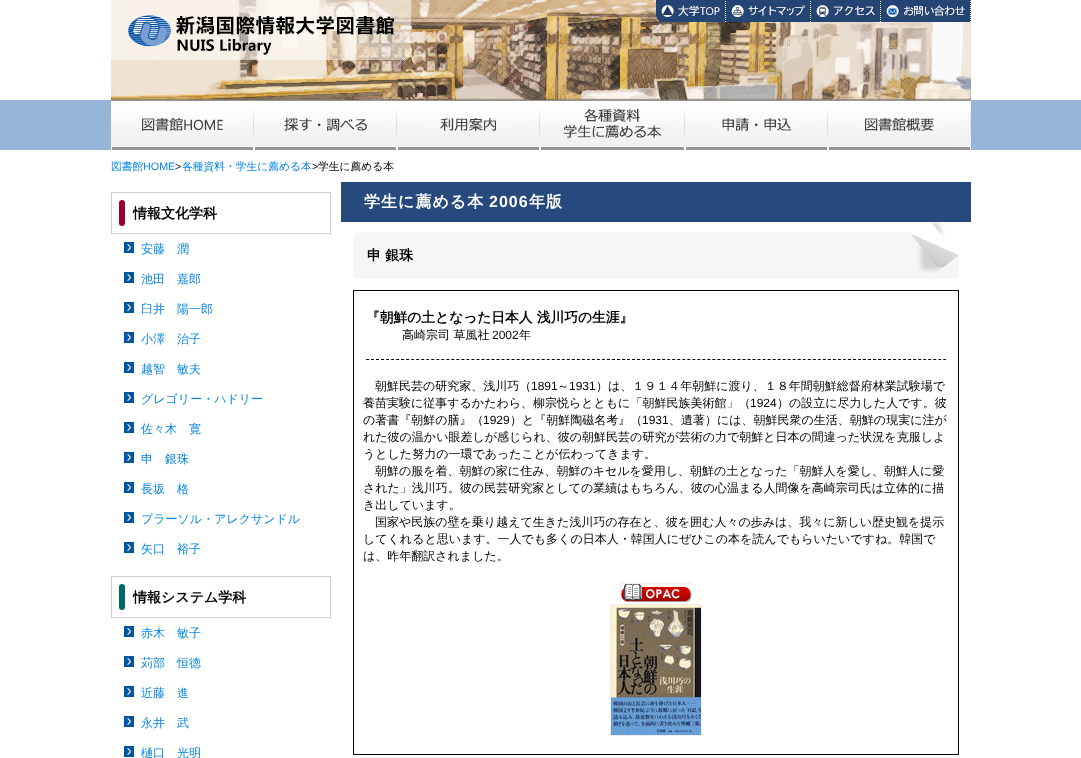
<!DOCTYPE html>
<meta charset="utf-8">
<style>body { margin: 0 } canvas { display: block }</style>
<canvas id="canvas" width="1081" height="758"></canvas>
<img id="img1" src="images/1.png" hidden>
<img id="img2" src="images/2.png" hidden>
<img id="img3" src="images/3.png" hidden>
<img id="img4" src="images/4.png" hidden>
<img id="img5" src="images/5.png" hidden>
<img id="img6" src="images/6.png" hidden>
<img id="img7" src="images/7.png" hidden>
<img id="img8" src="images/8.png" hidden>
<img id="img9" src="images/9.png" hidden>
<img id="img10" src="images/10.png" hidden>
<img id="img11" src="images/11.png" hidden>
<img id="img12" src="images/12.png" hidden>
<img id="img13" src="images/13.png" hidden>
<img id="img14" src="images/14.png" hidden>
<img id="img15" src="images/15.png" hidden>
<script>
window.onload = function () {
    const canvas = document.getElementById('canvas');
    const context = canvas.getContext('2d');
    context.miterLimit = 4;
    context.fontKerning = 'normal';
    let gradient;

    context.fillStyle = 'rgb(255, 255, 255)';
    context.fillRect(0, 0, 1081, 758);
    context.drawImage(document.getElementById('img1'), 111, 0, 860, 100);
    context.drawImage(document.getElementById('img2'), 111, 0, 300, 60);
    context.drawImage(document.getElementById('img3'), 656, 0, 70, 22);
    context.drawImage(document.getElementById('img4'), 726, 0, 85, 22);
    context.drawImage(document.getElementById('img5'), 811, 0, 70, 22);
    context.drawImage(document.getElementById('img6'), 881, 0, 90, 22);
    context.fillStyle = 'rgb(151, 181, 217)';
    context.fillRect(0, 100, 1081, 50);
    context.drawImage(document.getElementById('img7'), 111, 100, 143, 50);
    context.drawImage(document.getElementById('img8'), 254, 100, 143, 50);
    context.drawImage(document.getElementById('img9'), 397, 100, 143, 50);
    context.drawImage(document.getElementById('img10'), 540, 100, 145, 50);
    context.drawImage(document.getElementById('img11'), 685, 100, 143, 50);
    context.drawImage(document.getElementById('img12'), 828, 100, 143, 50);
    context.strokeStyle = 'rgb(204, 204, 204)';
    context.strokeRect(111.5, 192.5, 219, 41);
    context.fillStyle = 'rgb(153, 0, 51)';
    context.beginPath();
    context.roundRect(119, 200, 6, 26, 3);
    context.fill();
    context.drawImage(document.getElementById('img13'), 124, 242, 10, 11);
    context.drawImage(document.getElementById('img13'), 124, 272, 10, 11);
    context.drawImage(document.getElementById('img13'), 124, 302, 10, 11);
    context.drawImage(document.getElementById('img13'), 124, 332, 10, 11);
    context.drawImage(document.getElementById('img13'), 124, 362, 10, 11);
    context.drawImage(document.getElementById('img13'), 124, 392, 10, 11);
    context.drawImage(document.getElementById('img13'), 124, 422, 10, 11);
    context.drawImage(document.getElementById('img13'), 124, 452, 10, 11);
    context.drawImage(document.getElementById('img13'), 124, 482, 10, 11);
    context.drawImage(document.getElementById('img13'), 124, 512, 10, 11);
    context.drawImage(document.getElementById('img13'), 124, 542, 10, 11);
    context.strokeRect(111.5, 576.5, 219, 41);
    context.fillStyle = 'rgb(0, 102, 102)';
    context.beginPath();
    context.roundRect(119, 584, 6, 26, 3);
    context.fill();
    context.drawImage(document.getElementById('img13'), 124, 626, 10, 11);
    context.drawImage(document.getElementById('img13'), 124, 656, 10, 11);
    context.drawImage(document.getElementById('img13'), 124, 686, 10, 11);
    context.drawImage(document.getElementById('img13'), 124, 716, 10, 11);
    context.drawImage(document.getElementById('img13'), 124, 746, 10, 11);
    context.fillStyle = 'rgb(39, 74, 126)';
    context.fillRect(341, 182, 630, 40);
    gradient = context.createLinearGradient(719, 120, 593, 391);
    gradient.addColorStop(0.07, 'rgb(255, 255, 255)');
    gradient.addColorStop(0.07, 'rgb(246, 246, 246)');
    context.fillStyle = gradient;
    context.beginPath();
    context.roundRect(353, 232, 606, 47, 6);
    context.fill();
    context.save();
    context.beginPath();
    context.moveTo(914, 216);
    context.lineTo(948, 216);
    context.lineTo(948, 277);
    context.lineTo(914, 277);
    context.closePath();
    context.moveTo(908.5, 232);
    context.lineTo(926.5, 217);
    context.lineTo(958.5, 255);
    context.lineTo(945.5, 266.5);
    context.bezierCurveTo(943, 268.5, 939, 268, 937, 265.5);
    context.closePath();
    context.clip('evenodd');
    context.fillStyle = 'rgba(0, 0, 0, 0.15)';
    context.filter = 'blur(2px)';
    context.beginPath();
    context.roundRect(921, 223, 20, 47, 5);
    context.fill();
    context.filter = 'none';
    context.restore();
    gradient = context.createLinearGradient(942, 225, 925, 263);
    gradient.addColorStop(0.5, 'rgba(0, 0, 0, 0)');
    gradient.addColorStop(0.5, 'rgba(0, 0, 0, 0.1)');
    gradient.addColorStop(1, 'rgba(0, 0, 0, 0.2)');
    context.fillStyle = gradient;
    context.beginPath();
    context.moveTo(909, 232);
    context.lineTo(926, 217);
    context.lineTo(959, 255);
    context.lineTo(945, 266);
    context.bezierCurveTo(943, 268, 939, 268, 937, 266);
    context.closePath();
    context.fill();
    context.strokeStyle = 'rgb(0, 0, 0)';
    context.strokeRect(353.5, 290.5, 605, 464);
    context.beginPath();
    context.moveTo(366, 359.5);
    context.lineTo(946, 359.5);
    context.setLineDash([3, 2.02]);
    context.stroke();
    context.save();
    context.beginPath();
    context.rect(620, 583, 72, 19);
    context.clip();
    context.strokeStyle = 'rgb(238, 238, 238)';
    context.setLineDash([]);
    context.strokeRect(620.5, 583.5, 73, 20);
    context.restore();
    context.drawImage(document.getElementById('img14'), 621, 584, 71, 18);
    context.strokeStyle = 'rgb(238, 238, 238)';
    context.setLineDash([]);
    context.strokeRect(610.5, 604.5, 91, 131);
    context.drawImage(document.getElementById('img15'), 611, 605, 90, 130);
    context.font = '500 10.75px WenQuanYi Zen Hei';
    context.fillStyle = 'rgb(4, 133, 227)';
    context.fillText('図書館', 111, 170);
    context.font = '10.75px Liberation Sans';
    context.fillText('HOME', 143, 170);
    context.fillStyle = 'rgb(0, 0, 0)';
    context.fillText('>', 175, 170);
    context.font = '500 10.75px WenQuanYi Zen Hei';
    context.fillStyle = 'rgb(4, 133, 227)';
    context.fillText('各種資料・学生に薦める本', 182, 170);
    context.font = '10.75px Liberation Sans';
    context.fillStyle = 'rgb(0, 0, 0)';
    context.fillText('>', 312, 170);
    context.font = '500 10.75px WenQuanYi Zen Hei';
    context.fillText('学生に薦める本', 318, 170);
    context.font = 'bold 14px WenQuanYi Zen Hei';
    context.fillText('情報文化学科', 133, 218);
    context.font = '500 12px WenQuanYi Zen Hei';
    context.fillStyle = 'rgb(4, 133, 227)';
    context.fillText('安藤　潤', 141, 253);
    context.fillText('池田　嘉郎', 141, 283);
    context.fillText('臼井　陽一郎', 141, 313);
    context.fillText('小澤　治子', 141, 343);
    context.fillText('越智　敏夫', 141, 373);
    context.fillText('グレゴリー・ハドリー', 141, 403);
    context.fillText('佐々木　寛', 141, 433);
    context.fillText('申　銀珠', 141, 463);
    context.fillText('長坂　格', 141, 493);
    context.fillText('プラーソル・アレクサンドル', 141, 523);
    context.fillText('矢口　裕子', 141, 553);
    context.font = 'bold 14px WenQuanYi Zen Hei';
    context.fillStyle = 'rgb(0, 0, 0)';
    context.fillText('情報システム学科', 133, 602);
    context.font = '500 12px WenQuanYi Zen Hei';
    context.fillStyle = 'rgb(4, 133, 227)';
    context.fillText('赤木　敏子', 141, 637);
    context.fillText('苅部　恒徳', 141, 667);
    context.fillText('近藤　進', 141, 697);
    context.fillText('永井　武', 141, 727);
    context.fillText('樋口　光明', 141, 757);
    context.letterSpacing = '1px';
    context.font = 'bold 16px WenQuanYi Zen Hei';
    context.fillStyle = 'rgb(255, 255, 255)';
    context.fillText('学生に薦める本', 364, 207);
    context.font = 'bold 16px Liberation Sans';
    context.fillText('2006', 489, 207);
    context.font = 'bold 16px WenQuanYi Zen Hei';
    context.fillText('年版', 529, 207);
    context.letterSpacing = '0px';
    context.font = 'bold 14px WenQuanYi Zen Hei';
    context.fillStyle = 'rgb(0, 0, 0)';
    context.fillText('申 銀珠', 367, 260);
    context.font = 'bold 13.75px WenQuanYi Zen Hei';
    context.fillText('『朝鮮の土となった日本人 浅川巧の生涯』', 366, 322);
    context.font = '500 12px WenQuanYi Zen Hei';
    context.fillText('高崎宗司 草風社', 402, 339);
    context.font = '12px Liberation Sans';
    context.fillText('2002', 492, 339);
    context.font = '500 12px WenQuanYi Zen Hei';
    context.fillText('年', 519, 339);
    context.fillText('朝鮮民芸の研究家、浅川巧（', 375, 390);
    context.font = '12px Liberation Sans';
    context.fillText('1891', 531, 390);
    context.font = '500 12px WenQuanYi Zen Hei';
    context.fillText('～', 557, 390);
    context.font = '12px Liberation Sans';
    context.fillText('1931', 569, 390);
    context.font = '500 12px WenQuanYi Zen Hei';
    context.fillText('）は、１９１４年朝鮮に渡り、１８年間朝鮮総督府林業試験場で', 596, 390);
    context.fillText('養苗実験に従事するかたわら、柳宗悦らとともに「朝鮮民族美術館」（', 363, 407);
    context.font = '12px Liberation Sans';
    context.fillText('1924', 750, 407);
    context.font = '500 12px WenQuanYi Zen Hei';
    context.fillText('）の設立に尽力した人です。彼', 777, 407);
    context.fillText('の著書『朝鮮の膳』（', 363, 424);
    context.font = '12px Liberation Sans';
    context.fillText('1929', 483, 424);
    context.font = '500 12px WenQuanYi Zen Hei';
    context.fillText('）と『朝鮮陶磁名考』（', 510, 424);
    context.font = '12px Liberation Sans';
    context.fillText('1931', 642, 424);
    context.font = '500 12px WenQuanYi Zen Hei';
    context.fillText('、遺著）には、朝鮮民衆の生活、朝鮮の現実に注が', 669, 424);
    context.fillText('れた彼の温かい眼差しが感じられ、彼の朝鮮民芸の研究が芸術の力で朝鮮と日本の間違った状況を克服しよ', 363, 441);
    context.fillText('うとした努力の一環であったことが伝わってきます。', 363, 458);
    context.fillText('朝鮮の服を着、朝鮮の家に住み、朝鮮のキセルを愛用し、朝鮮の土となった「朝鮮人を愛し、朝鮮人に愛', 375, 475);
    context.fillText('された」浅川巧。彼の民芸研究家としての業績はもちろん、彼の心温まる人間像を高崎宗司氏は立体的に描', 363, 492);
    context.fillText('き出しています。', 363, 509);
    context.fillText('国家や民族の壁を乗り越えて生きた浅川巧の存在と、彼を囲む人々の歩みは、我々に新しい歴史観を提示', 375, 526);
    context.fillText('してくれると思います。一人でも多くの日本人・韓国人にぜひこの本を読んでもらいたいですね。韓国で', 363, 543);
    context.fillText('は、昨年翻訳されました。', 363, 560);
};
</script>
